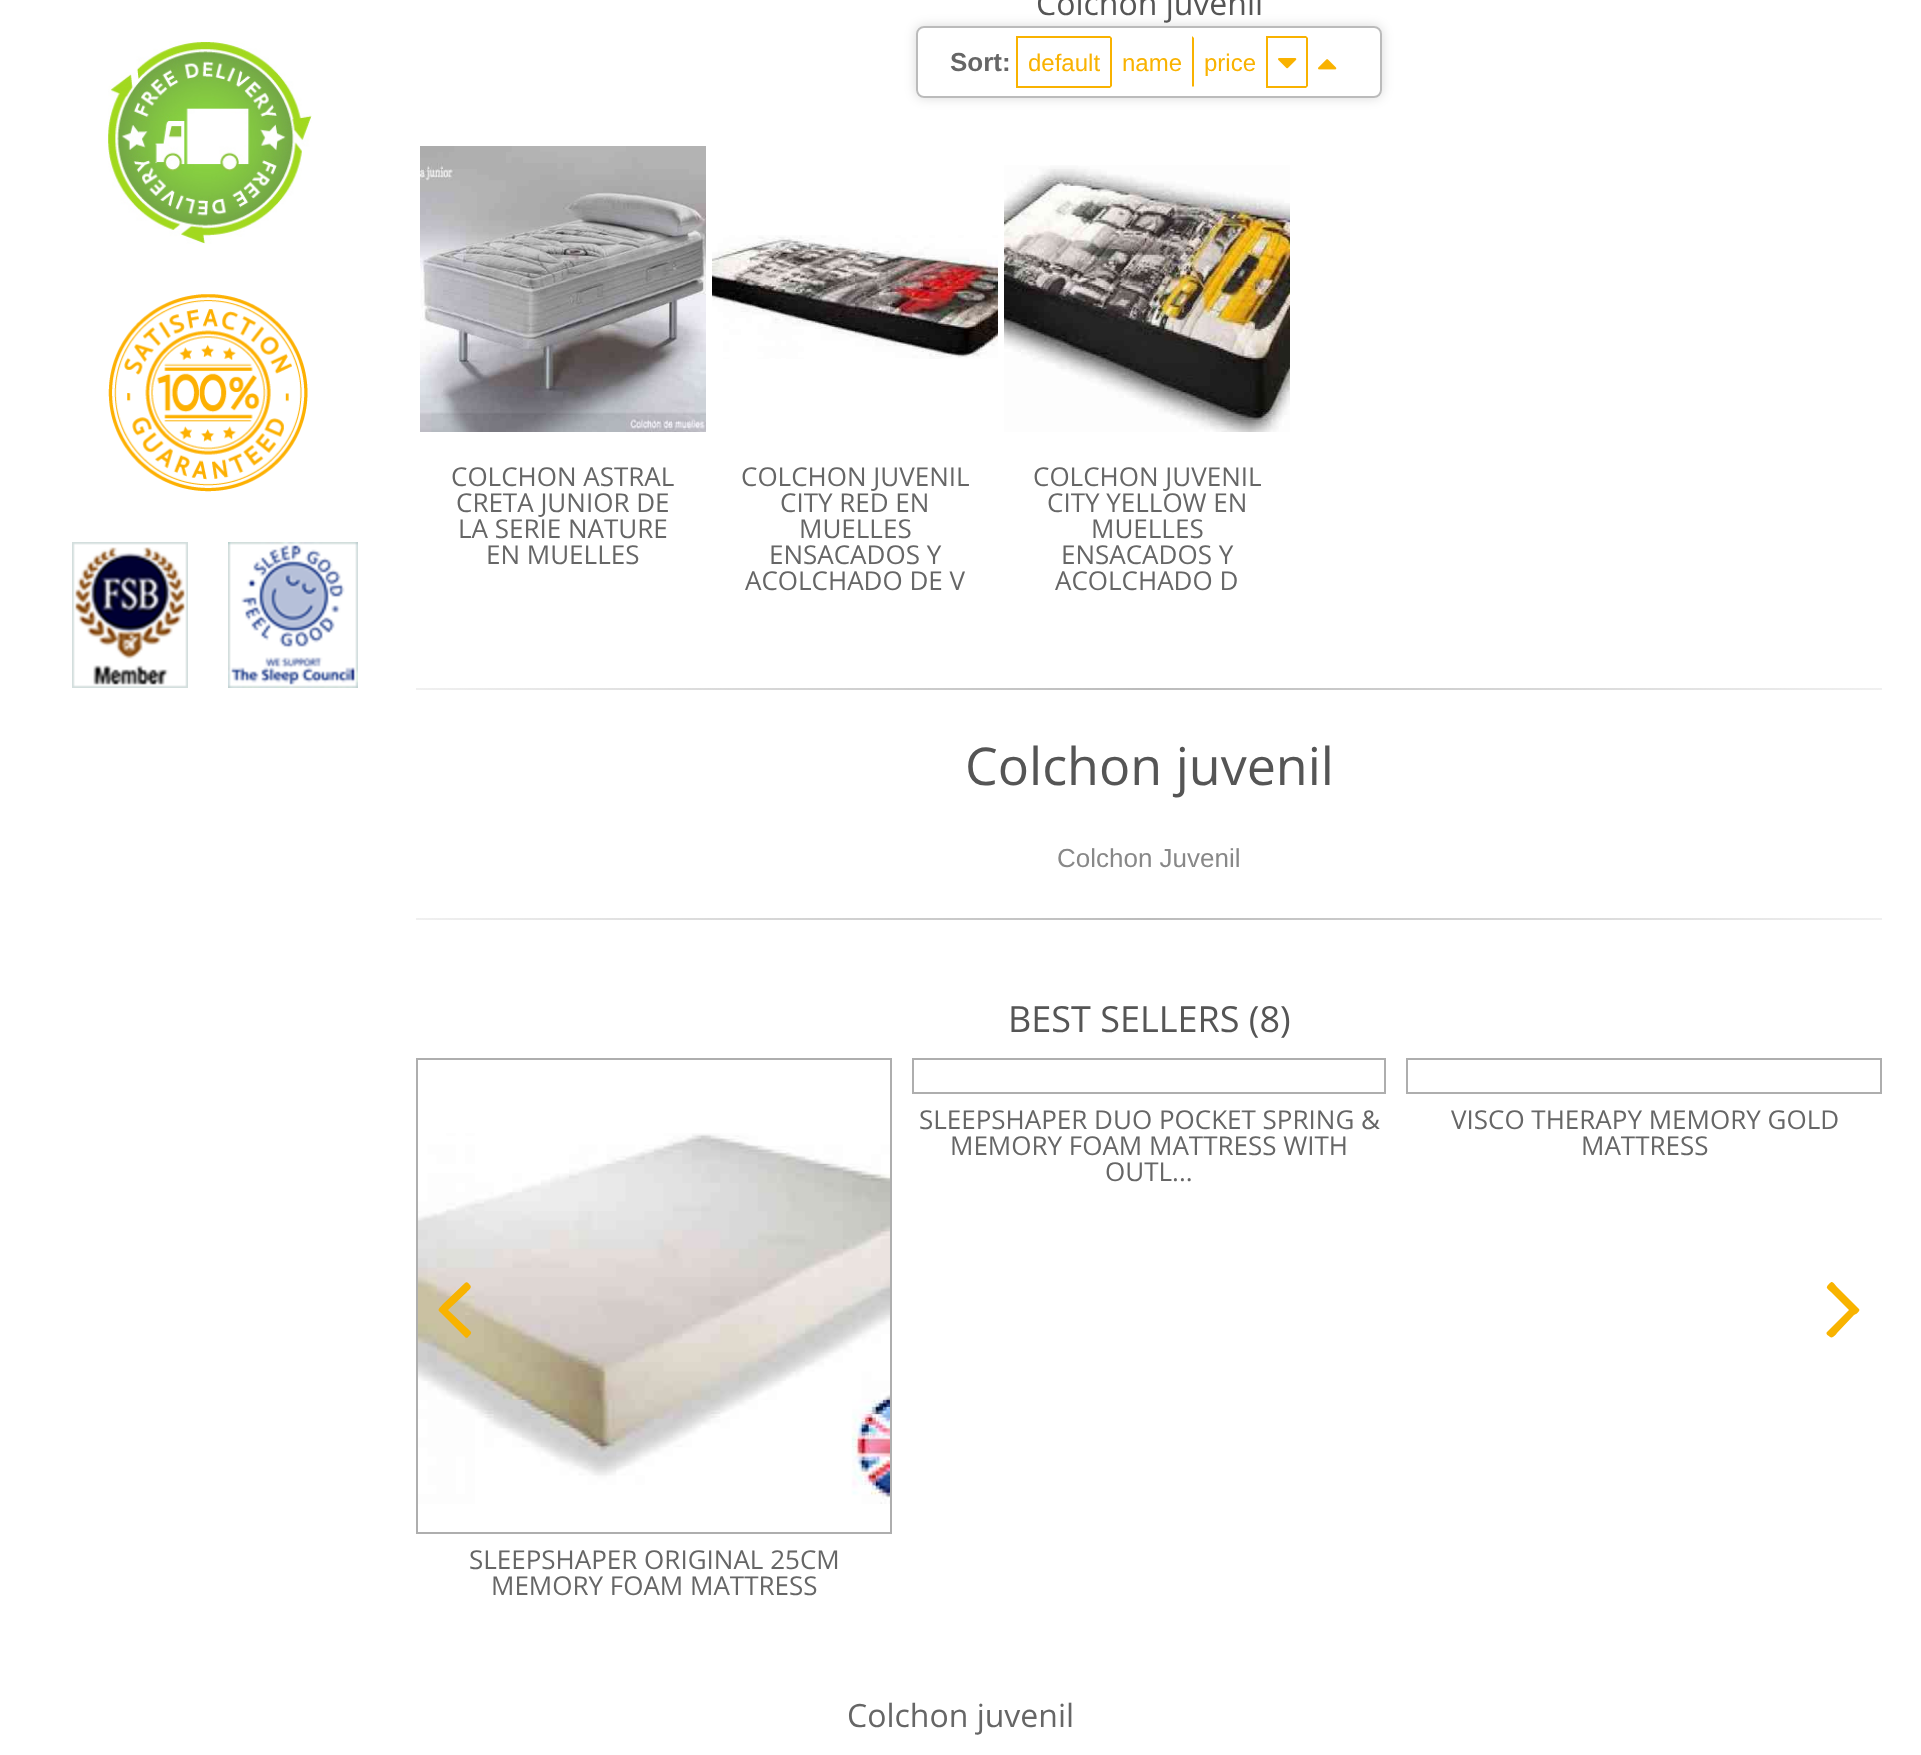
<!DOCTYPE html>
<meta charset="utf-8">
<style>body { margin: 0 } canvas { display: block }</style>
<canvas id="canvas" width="1921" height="1755"></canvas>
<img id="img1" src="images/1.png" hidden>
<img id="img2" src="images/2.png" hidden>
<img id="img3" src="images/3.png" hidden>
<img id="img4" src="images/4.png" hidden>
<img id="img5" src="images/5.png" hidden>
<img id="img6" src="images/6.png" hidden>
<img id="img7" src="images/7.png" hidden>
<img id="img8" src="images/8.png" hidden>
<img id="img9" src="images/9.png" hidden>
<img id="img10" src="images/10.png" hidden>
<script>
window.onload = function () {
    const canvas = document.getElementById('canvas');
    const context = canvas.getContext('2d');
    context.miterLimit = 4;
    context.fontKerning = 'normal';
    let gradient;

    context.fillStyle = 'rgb(255, 255, 255)';
    context.fillRect(0, 0, 1921, 1755);
    context.drawImage(document.getElementById('img1'), 108, 41, 204, 203);
    context.drawImage(document.getElementById('img2'), 108, 294, 200, 198);
    context.drawImage(document.getElementById('img3'), 72, 542, 116, 146);
    context.drawImage(document.getElementById('img4'), 228, 542, 130, 146);
    context.save();
    context.beginPath();
    context.moveTo(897, 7);
    context.lineTo(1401, 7);
    context.lineTo(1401, 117);
    context.lineTo(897, 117);
    context.closePath();
    context.moveTo(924, 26);
    context.lineTo(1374, 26);
    context.bezierCurveTo(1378.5, 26, 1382, 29.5, 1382, 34);
    context.lineTo(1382, 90);
    context.bezierCurveTo(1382, 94.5, 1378.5, 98, 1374, 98);
    context.lineTo(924, 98);
    context.bezierCurveTo(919.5, 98, 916, 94.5, 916, 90);
    context.lineTo(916, 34);
    context.bezierCurveTo(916, 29.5, 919.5, 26, 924, 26);
    context.closePath();
    context.clip('evenodd');
    context.fillStyle = 'rgba(0, 0, 0, 0.15)';
    context.filter = 'blur(6px)';
    context.beginPath();
    context.roundRect(916, 26, 466, 72, 8);
    context.fill();
    context.filter = 'none';
    context.restore();
    context.beginPath();
    context.roundRect(917, 27, 464, 70, 7);
    context.strokeStyle = 'rgb(187, 187, 187)';
    context.lineWidth = 2;
    context.stroke();
    context.strokeStyle = 'rgb(249, 178, 0)';
    context.strokeRect(1017, 37, 94, 50);
    context.beginPath();
    context.moveTo(1110, 36);
    context.lineTo(1194, 36);
    context.lineTo(1192, 38);
    context.lineTo(1112, 38);
    context.closePath();
    context.fill();
    context.fillStyle = 'rgb(249, 178, 0)';
    context.fillRect(1192, 36, 2, 52);
    context.fillStyle = 'rgb(255, 255, 255)';
    context.beginPath();
    context.moveTo(1194, 88);
    context.lineTo(1110, 88);
    context.lineTo(1112, 86);
    context.lineTo(1192, 86);
    context.closePath();
    context.fill();
    context.beginPath();
    context.moveTo(1192, 36);
    context.lineTo(1268, 36);
    context.lineTo(1266, 38);
    context.lineTo(1194, 38);
    context.closePath();
    context.fill();
    context.beginPath();
    context.moveTo(1268, 88);
    context.lineTo(1192, 88);
    context.lineTo(1194, 86);
    context.lineTo(1266, 86);
    context.closePath();
    context.fill();
    context.strokeRect(1267, 37, 40, 50);
    context.drawImage(document.getElementById('img5'), 1278, 58, 19, 11);
    context.beginPath();
    context.moveTo(1306, 36);
    context.lineTo(1348, 36);
    context.lineTo(1346, 38);
    context.lineTo(1308, 38);
    context.closePath();
    context.moveTo(1348, 88);
    context.lineTo(1306, 88);
    context.lineTo(1308, 86);
    context.lineTo(1346, 86);
    context.closePath();
    context.fill();
    context.drawImage(document.getElementById('img6'), 1318, 59, 19, 11);
    context.drawImage(document.getElementById('img7'), 420, 146, 286, 286);
    context.drawImage(document.getElementById('img8'), 712, 235, 286, 124);
    context.drawImage(document.getElementById('img9'), 1004, 165, 286, 267);
    gradient = context.createLinearGradient(416, 689, 1882, 689);
    gradient.addColorStop(0, 'rgb(240, 240, 240)');
    gradient.addColorStop(0.5, 'rgb(187, 187, 187)');
    gradient.addColorStop(1, 'rgb(240, 240, 240)');
    context.fillStyle = gradient;
    context.fillRect(416, 688, 1466, 2);
    gradient = context.createLinearGradient(416, 919, 1882, 919);
    gradient.addColorStop(0, 'rgb(240, 240, 240)');
    gradient.addColorStop(0.5, 'rgb(187, 187, 187)');
    gradient.addColorStop(1, 'rgb(240, 240, 240)');
    context.fillStyle = gradient;
    context.fillRect(416, 918, 1466, 2);
    context.strokeStyle = 'rgb(174, 174, 174)';
    context.strokeRect(913, 1059, 472, 34);
    context.strokeRect(1407, 1059, 474, 34);
    context.strokeRect(417, 1059, 474, 474);
    context.drawImage(document.getElementById('img10'), 418, 1133, 472, 371);
    context.fillStyle = 'rgb(248, 179, 0)';
    context.beginPath();
    context.moveTo(470, 1285);
    context.bezierCurveTo(473, 1288, 467, 1291, 467, 1292);
    context.lineTo(448, 1310);
    context.lineTo(467, 1328);
    context.bezierCurveTo(471, 1332, 473, 1332, 469, 1336);
    context.bezierCurveTo(468, 1337, 467, 1339, 465, 1337);
    context.lineTo(443, 1315);
    context.bezierCurveTo(437, 1309, 437, 1311, 443, 1304);
    context.lineTo(465, 1283);
    context.bezierCurveTo(467, 1281, 469, 1284, 470, 1285);
    context.closePath();
    context.fill();
    context.beginPath();
    context.moveTo(1859, 1309);
    context.bezierCurveTo(1861, 1311, 1855, 1315, 1854, 1315);
    context.lineTo(1837, 1333);
    context.bezierCurveTo(1837, 1333, 1833, 1339, 1830, 1337);
    context.bezierCurveTo(1829, 1336, 1825, 1334, 1827, 1332);
    context.lineTo(1849, 1310);
    context.lineTo(1831, 1292);
    context.bezierCurveTo(1827, 1288, 1825, 1288, 1829, 1284);
    context.bezierCurveTo(1833, 1280, 1833, 1283, 1837, 1287);
    context.closePath();
    context.fill();
    context.font = '32px Open Sans';
    context.fillStyle = 'rgb(85, 85, 85)';
    context.fillText('Colchon juvenil', 1036, 15);
    context.font = 'bold 26px Liberation Sans';
    context.fillStyle = 'rgb(102, 102, 102)';
    context.fillText('Sort:', 950, 71);
    context.font = '24px Liberation Sans';
    context.fillStyle = 'rgb(249, 178, 0)';
    context.fillText('default', 1028, 71);
    context.fillText('name', 1122, 71);
    context.fillText('price', 1204, 71);
    context.font = '26px Open Sans';
    context.fillStyle = 'rgb(102, 102, 102)';
    context.fillText('COLCHON ASTRAL', 451, 486);
    context.fillText('CRETA JUNIOR DE', 456, 512);
    context.fillText('LA SERIE NATURE', 458, 538);
    context.fillText('EN MUELLES', 486, 564);
    context.fillText('COLCHON JUVENIL', 741, 486);
    context.fillText('CITY RED EN', 780, 512);
    context.fillText('MUELLES', 799, 538);
    context.fillText('ENSACADOS Y', 769, 564);
    context.fillText('ACOLCHADO DE V', 745, 590);
    context.fillText('COLCHON JUVENIL', 1033, 486);
    context.fillText('CITY YELLOW EN', 1047, 512);
    context.fillText('MUELLES', 1091, 538);
    context.fillText('ENSACADOS Y', 1061, 564);
    context.fillText('ACOLCHADO D', 1055, 590);
    context.font = '52px Open Sans';
    context.fillStyle = 'rgb(85, 85, 85)';
    context.fillText('Colchon juvenil', 965, 785);
    context.font = '26px Liberation Sans';
    context.fillStyle = 'rgb(136, 136, 136)';
    context.fillText('Colchon Juvenil', 1057, 867);
    context.font = '36px Open Sans';
    context.fillStyle = 'rgb(85, 85, 85)';
    context.fillText('BEST SELLERS (8)', 1008, 1032);
    context.font = '26px Open Sans';
    context.fillStyle = 'rgb(102, 102, 102)';
    context.fillText('SLEEPSHAPER DUO POCKET SPRING &', 919, 1129);
    context.fillText('MEMORY FOAM MATTRESS WITH', 950, 1155);
    context.fillText('OUTL...', 1105, 1181);
    context.fillText('VISCO THERAPY MEMORY GOLD', 1451, 1129);
    context.fillText('MATTRESS', 1581, 1155);
    context.fillText('SLEEPSHAPER ORIGINAL 25CM', 469, 1569);
    context.fillText('MEMORY FOAM MATTRESS', 491, 1595);
    context.font = '32px Open Sans';
    context.fillText('Colchon juvenil', 847, 1727);
};
</script>
